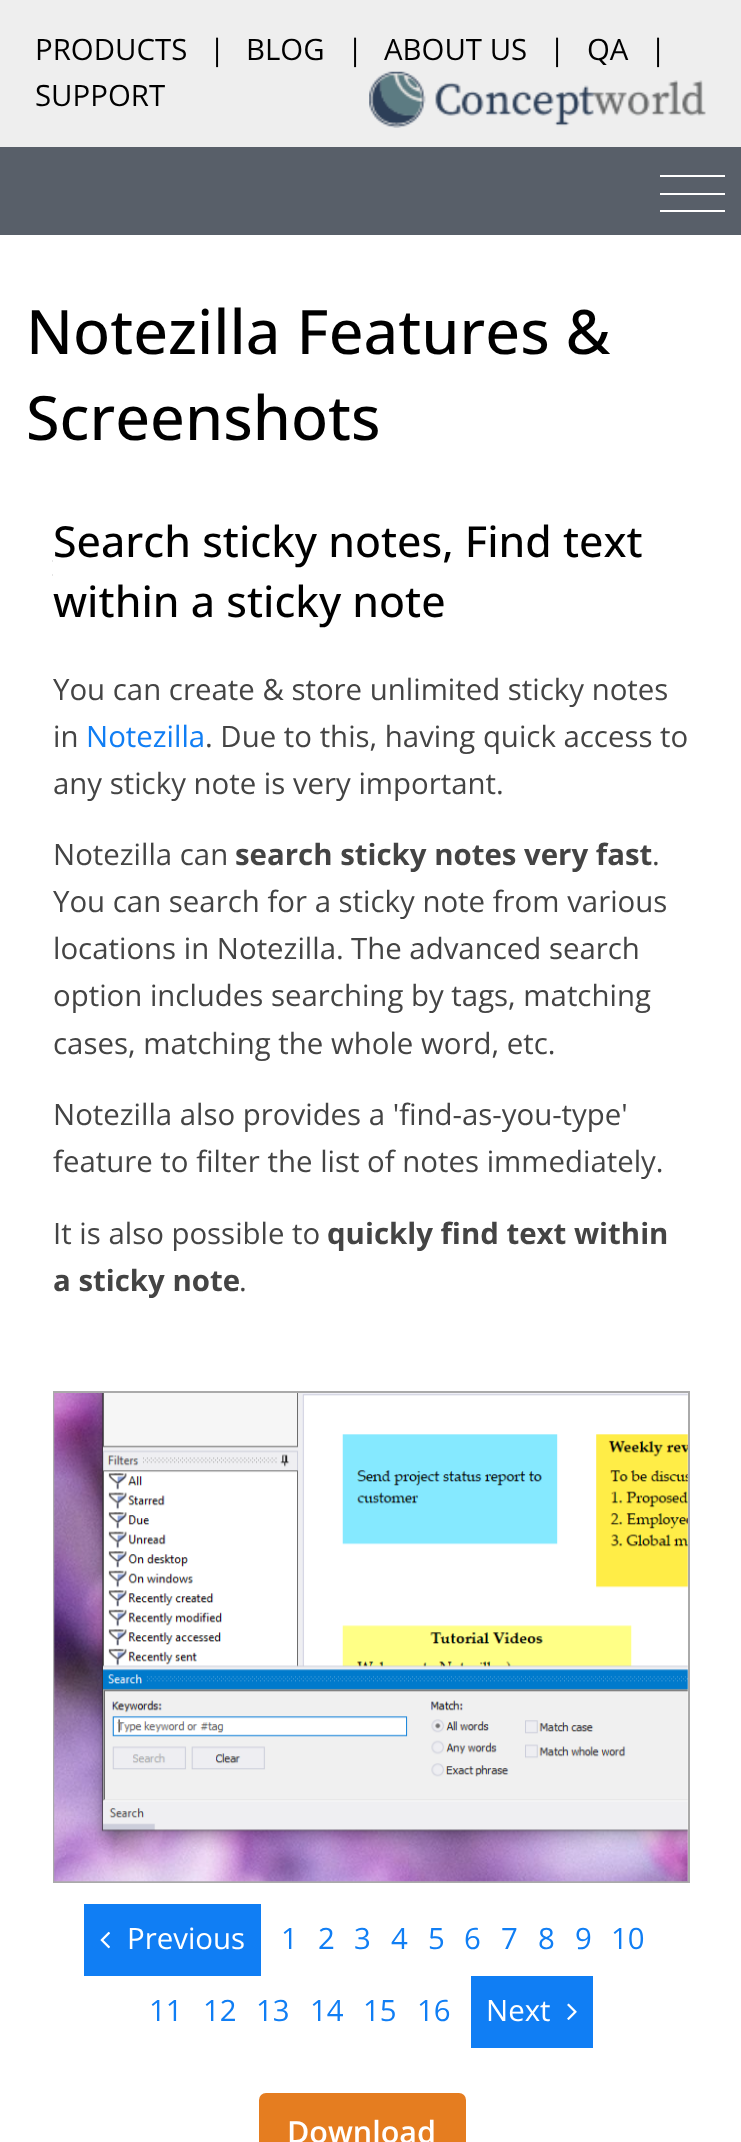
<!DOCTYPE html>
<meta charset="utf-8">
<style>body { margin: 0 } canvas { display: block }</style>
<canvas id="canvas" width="741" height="2142"></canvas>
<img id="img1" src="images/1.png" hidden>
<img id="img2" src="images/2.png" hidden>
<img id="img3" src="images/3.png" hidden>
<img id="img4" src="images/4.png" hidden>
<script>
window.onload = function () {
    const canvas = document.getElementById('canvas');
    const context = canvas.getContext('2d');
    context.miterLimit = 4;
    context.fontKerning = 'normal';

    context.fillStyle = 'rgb(238, 238, 238)';
    context.fillRect(0, 0, 741, 2142);
    context.drawImage(document.getElementById('img1'), 369, 71, 337, 57);
    context.fillStyle = 'rgb(88, 95, 105)';
    context.fillRect(0, 147, 741, 88);
    context.fillStyle = 'rgb(255, 255, 255)';
    context.fillRect(660, 175, 65, 2);
    context.fillRect(660, 193, 65, 2);
    context.fillRect(660, 210, 65, 2);
    context.fillRect(0, 235, 741, 1907);
    context.beginPath();
    context.moveTo(52.5, 561);
    context.lineTo(689.5, 561);
    context.strokeStyle = 'rgb(204, 204, 204)';
    context.lineWidth = 1.8;
    context.setLineDash([5.25, 3.52]);
    context.stroke();
    context.beginPath();
    context.moveTo(52.5, 575);
    context.lineTo(689.5, 575);
    context.stroke();
    context.fillRect(53, 560, 637, 16);
    context.strokeStyle = 'rgb(170, 170, 170)';
    context.lineWidth = 2;
    context.setLineDash([]);
    context.strokeRect(54, 1392, 635, 490);
    context.drawImage(document.getElementById('img2'), 54, 1393, 634, 489);
    context.fillStyle = 'rgb(16, 126, 244)';
    context.fillRect(84, 1904, 177, 72);
    context.drawImage(document.getElementById('img3'), 100, 1931, 10, 18);
    context.fillRect(471, 1976, 122, 72);
    context.drawImage(document.getElementById('img4'), 567, 2003, 10, 17);
    context.fillStyle = 'rgb(229, 125, 32)';
    context.beginPath();
    context.roundRect(259, 2093, 207, 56, 7);
    context.fill();
    context.font = '29.4px Open Sans';
    context.fillStyle = 'rgb(0, 0, 0)';
    context.fillText('PRODUCTS', 35, 60);
    context.fillText('|', 209, 60);
    context.fillText('BLOG', 246, 60);
    context.fillText('|', 347, 60);
    context.fillText('ABOUT US', 384, 60);
    context.fillText('|', 549, 60);
    context.fillText('QA', 587, 60);
    context.fillText('|', 650, 60);
    context.fillText('SUPPORT', 35, 106);
    context.font = '500 61.25px Open Sans';
    context.fillText('Notezilla Features &', 26, 354);
    context.fillText('Screenshots', 26, 440);
    context.font = '500 42.9px Open Sans';
    context.fillText('Search sticky notes, Find text', 53, 557);
    context.fillText('within a sticky note', 53, 617);
    context.font = '29.4px Open Sans';
    context.fillStyle = 'rgb(68, 68, 68)';
    context.fillText('You can create & store unlimited sticky notes', 53, 700);
    context.fillText('in', 53, 747);
    context.fillStyle = 'rgb(16, 126, 244)';
    context.fillText('Notezilla', 86, 747);
    context.fillStyle = 'rgb(68, 68, 68)';
    context.fillText('. Due to this, having quick access to', 205, 747);
    context.fillText('any sticky note is very important.', 53, 794);
    context.fillText('Notezilla can', 53, 865);
    context.font = 'bold 29.4px Open Sans';
    context.fillText('search sticky notes very fast', 235, 865);
    context.font = '29.4px Open Sans';
    context.fillText('.', 652, 865);
    context.fillText('You can search for a sticky note from various', 53, 912);
    context.fillText('locations in Notezilla.', 53, 959);
    context.fillText('The advanced search', 351, 959);
    context.fillText('option includes searching by tags, matching', 53, 1006);
    context.fillText('cases, matching the whole word, etc.', 53, 1054);
    context.fillText('Notezilla also provides a \'find-as-you-type\'', 53, 1125);
    context.fillText('feature to filter the list of notes immediately.', 53, 1172);
    context.fillText('It is also possible to', 53, 1244);
    context.font = 'bold 29.4px Open Sans';
    context.fillText('quickly find text within', 327, 1244);
    context.fillText('a sticky note', 53, 1291);
    context.font = '29.4px Open Sans';
    context.fillText('.', 239, 1291);
    context.fillStyle = 'rgb(255, 255, 255)';
    context.fillText('Previous', 127, 1949);
    context.fillStyle = 'rgb(16, 126, 244)';
    context.fillText('1', 281, 1949);
    context.fillText('2', 318, 1949);
    context.fillText('3', 354, 1949);
    context.fillText('4', 391, 1949);
    context.fillText('5', 428, 1949);
    context.fillText('6', 464, 1949);
    context.fillText('7', 501, 1949);
    context.fillText('8', 538, 1949);
    context.fillText('9', 575, 1949);
    context.fillText('10', 611, 1949);
    context.fillText('11', 149, 2021);
    context.fillText('12', 203, 2021);
    context.fillText('13', 256, 2021);
    context.fillText('14', 310, 2021);
    context.fillText('15', 363, 2021);
    context.fillText('16', 417, 2021);
    context.fillStyle = 'rgb(255, 255, 255)';
    context.fillText('Next', 486, 2021);
    context.font = '600 30.5px Open Sans';
    context.fillText('Download', 287, 2143);
};
</script>
